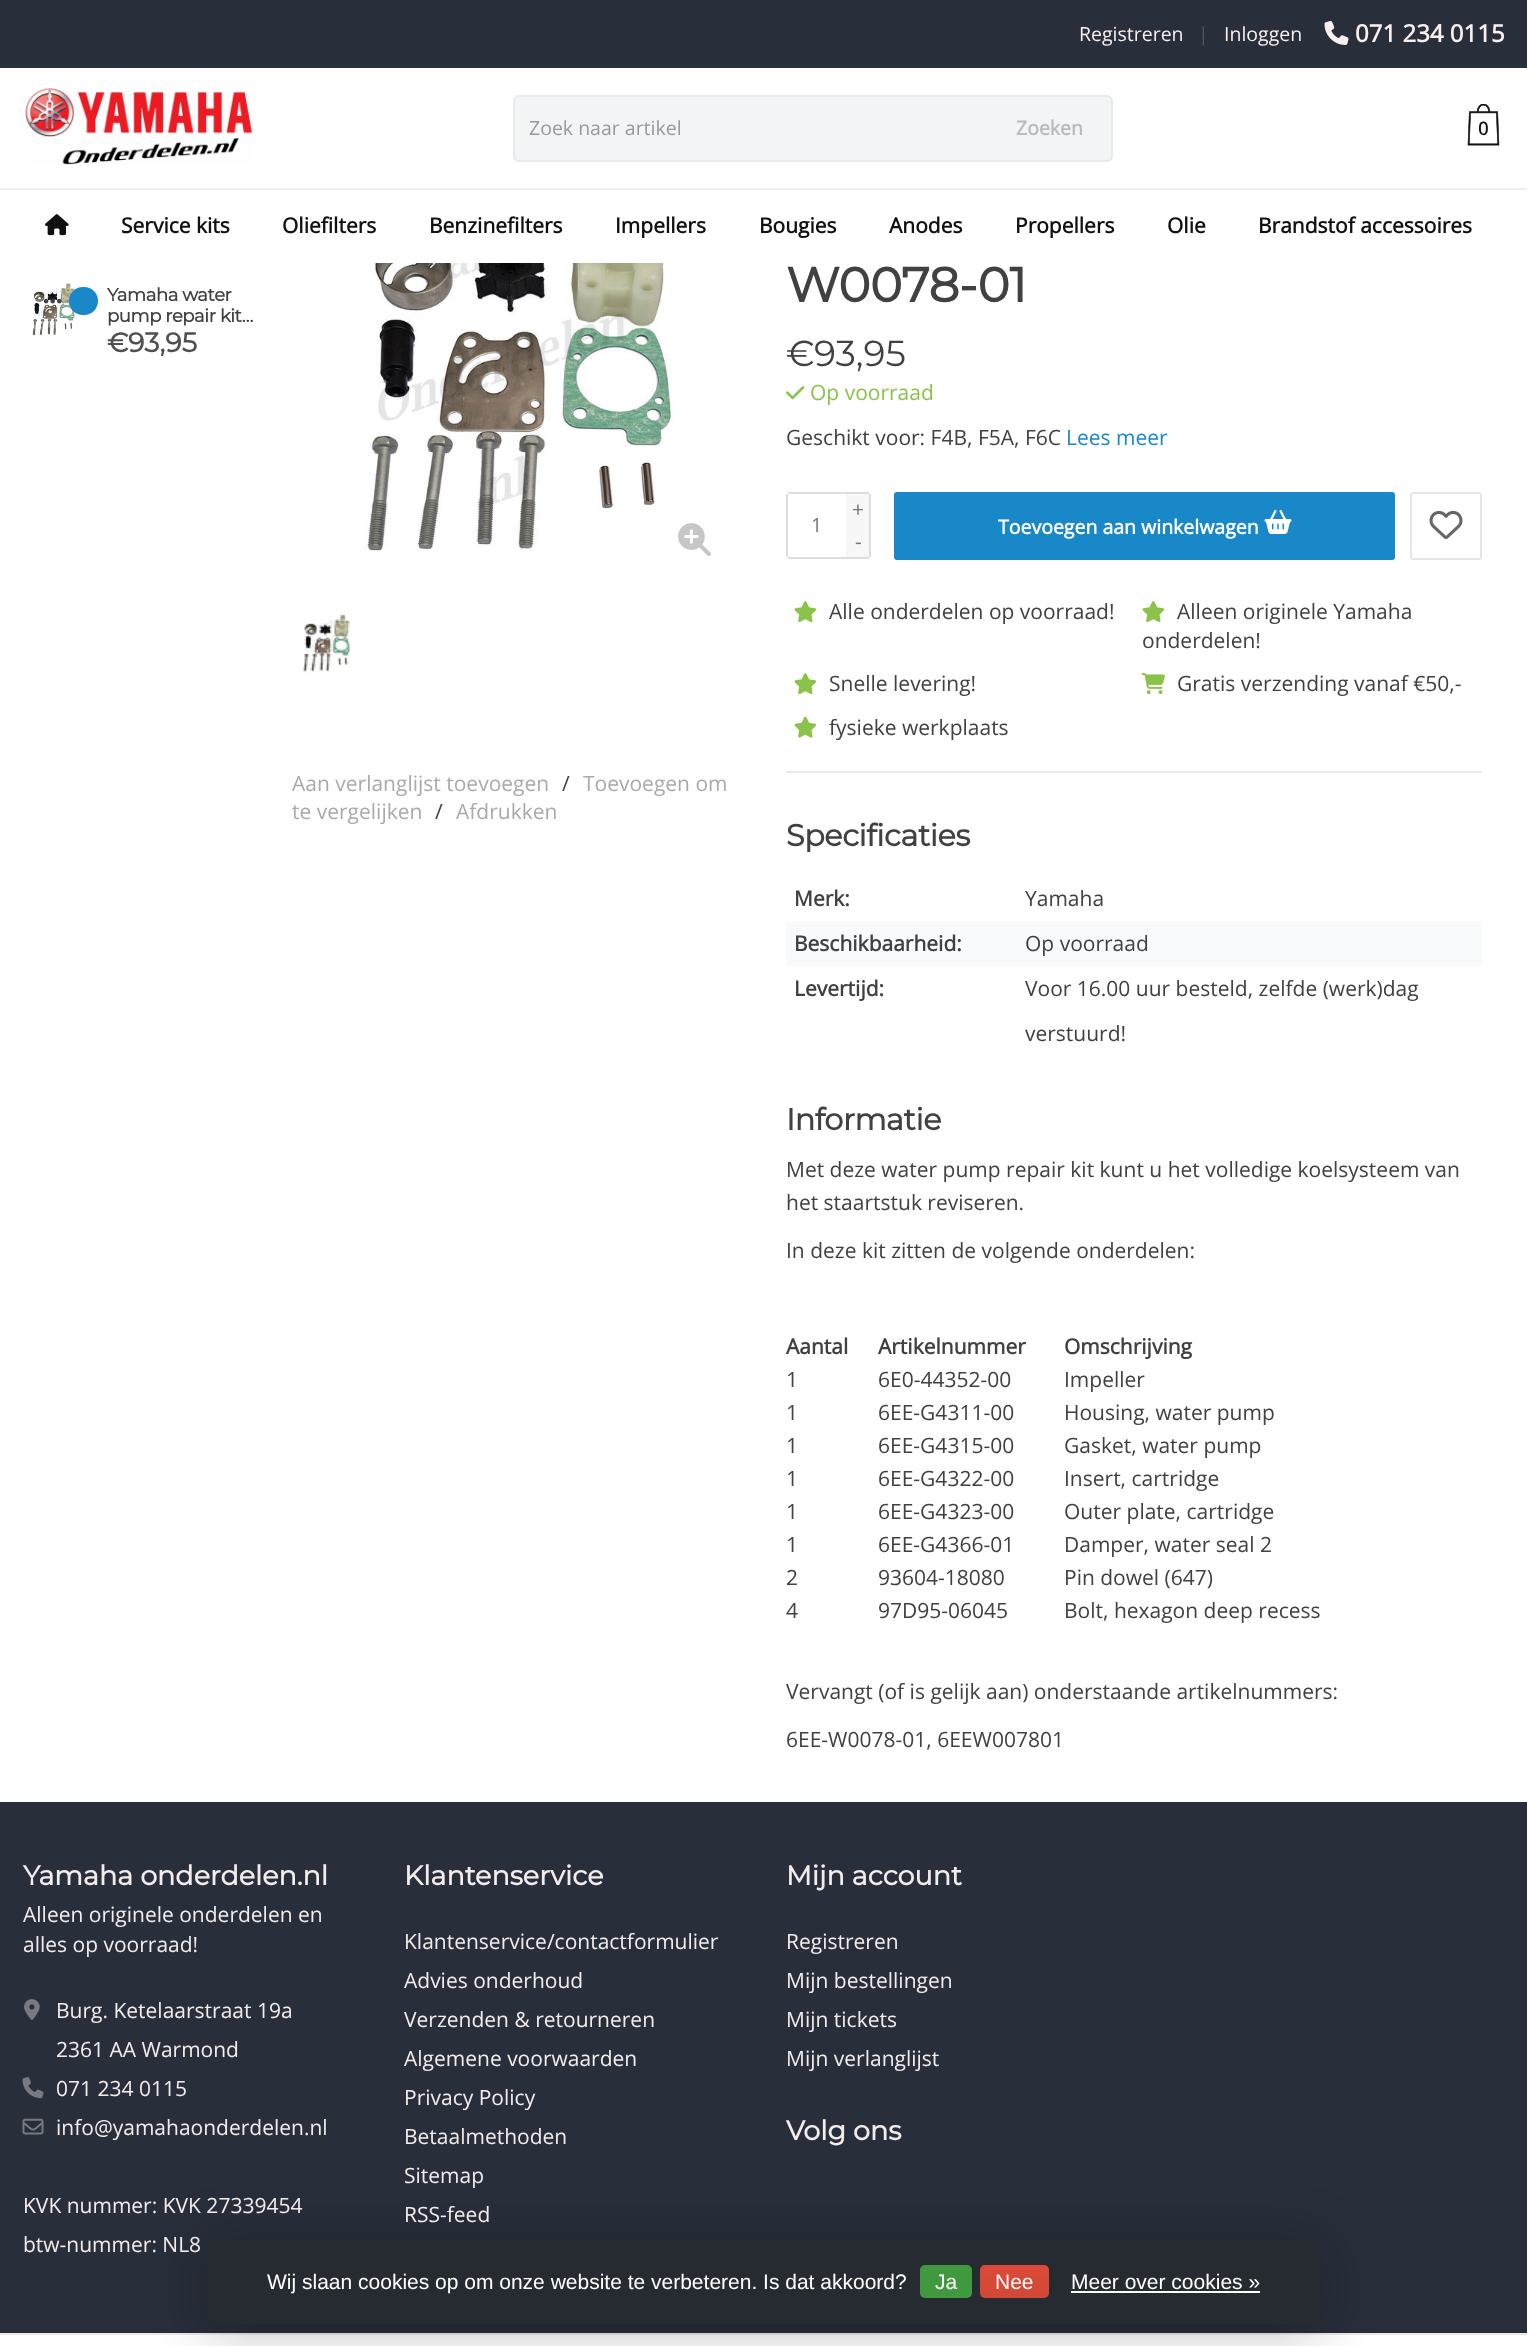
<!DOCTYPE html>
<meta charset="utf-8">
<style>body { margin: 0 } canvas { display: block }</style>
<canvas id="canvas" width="1527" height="2346"></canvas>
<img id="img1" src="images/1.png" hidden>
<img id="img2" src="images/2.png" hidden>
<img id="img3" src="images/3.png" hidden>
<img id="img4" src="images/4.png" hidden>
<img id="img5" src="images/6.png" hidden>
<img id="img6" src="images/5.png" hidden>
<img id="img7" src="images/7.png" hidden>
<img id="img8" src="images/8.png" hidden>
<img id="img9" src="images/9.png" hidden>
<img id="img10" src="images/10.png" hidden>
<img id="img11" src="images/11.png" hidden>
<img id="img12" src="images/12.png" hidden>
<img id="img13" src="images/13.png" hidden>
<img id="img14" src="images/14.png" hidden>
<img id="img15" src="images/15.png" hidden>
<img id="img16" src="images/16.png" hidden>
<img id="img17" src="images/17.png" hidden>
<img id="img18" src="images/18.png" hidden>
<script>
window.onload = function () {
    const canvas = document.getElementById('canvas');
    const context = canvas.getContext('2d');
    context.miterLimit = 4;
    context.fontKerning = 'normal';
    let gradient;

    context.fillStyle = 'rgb(255, 255, 255)';
    context.fillRect(0, 0, 1527, 2346);
    context.fillStyle = 'rgb(40, 46, 58)';
    context.fillRect(0, 0, 1527, 68);
    context.drawImage(document.getElementById('img1'), 1324, 21, 25, 24);
    context.drawImage(document.getElementById('img2'), 25, 88, 228, 77);
    context.fillStyle = 'rgb(243, 244, 245)';
    context.beginPath();
    context.roundRect(513, 95, 600, 67, 6);
    context.fill();
    context.beginPath();
    context.roundRect(514, 96, 598, 65, 5);
    context.strokeStyle = 'rgba(221, 221, 221, 0.5)';
    context.lineWidth = 2;
    context.stroke();
    context.drawImage(document.getElementById('img3'), 1467, 104, 33, 42);
    context.drawImage(document.getElementById('img4'), 45, 214, 24, 22);
    context.drawImage(document.getElementById('img5'), 32, 283, 43, 53);
    context.drawImage(document.getElementById('img6'), 43, 298, 19, 6);
    context.fillStyle = 'rgb(24, 136, 201)';
    context.beginPath();
    context.roundRect(69, 287, 29, 28, 14);
    context.fill();
    context.fillStyle = 'rgb(238, 238, 238)';
    context.fillRect(0, 188, 1527, 2);
    context.drawImage(document.getElementById('img7'), 786, 386, 19, 14);
    context.fillStyle = 'rgb(221, 221, 221)';
    context.fillRect(788, 492, 58, 2);
    context.fillRect(788, 557, 58, 2);
    context.fillRect(786, 494, 2, 63);
    context.fillStyle = 'rgb(247, 247, 247)';
    context.beginPath();
    context.roundRect(846, 492, 24, 66, [0, 3, 3, 0]);
    context.fill();
    context.fillStyle = 'rgb(221, 221, 221)';
    context.fillRect(846, 492, 23, 2);
    context.fillRect(869, 494, 2, 63);
    context.fillRect(846, 557, 23, 2);
    context.fillStyle = 'rgb(24, 136, 201)';
    context.beginPath();
    context.roundRect(895, 493, 499, 66, 2);
    context.fill();
    context.strokeStyle = 'rgb(24, 136, 201)';
    context.stroke();
    context.drawImage(document.getElementById('img8'), 1264, 510, 28, 24);
    context.beginPath();
    context.roundRect(1411, 493, 70, 66, 2);
    context.strokeStyle = 'rgb(230, 230, 230)';
    context.stroke();
    context.drawImage(document.getElementById('img9'), 1429, 510, 34, 29);
    context.drawImage(document.getElementById('img10'), 794, 601, 23, 22);
    context.drawImage(document.getElementById('img10'), 1142, 601, 23, 22);
    context.drawImage(document.getElementById('img10'), 794, 673, 23, 22);
    context.drawImage(document.getElementById('img11'), 1141, 673, 24, 22);
    context.drawImage(document.getElementById('img12'), 794, 716, 23, 22);
    context.fillStyle = 'rgb(234, 234, 234)';
    context.fillRect(786, 771, 696, 2);
    context.fillStyle = 'rgb(249, 250, 251)';
    context.fillRect(786, 921, 696, 45);
    context.drawImage(document.getElementById('img13'), 364, 263, 310, 288);
    context.drawImage(document.getElementById('img14'), 678, 523, 33, 33);
    context.drawImage(document.getElementById('img15'), 302, 609, 51, 64);
    context.fillStyle = 'rgb(40, 46, 58)';
    context.fillRect(0, 1802, 1527, 531);
    context.drawImage(document.getElementById('img16'), 24, 1999, 16, 21);
    context.drawImage(document.getElementById('img17'), 22, 2077, 22, 22);
    context.drawImage(document.getElementById('img18'), 22, 2118, 22, 17);
    context.fillStyle = 'rgb(233, 233, 233)';
    context.fillRect(0, 2333, 1527, 2);
    context.save();
    context.beginPath();
    context.moveTo(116, 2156);
    context.lineTo(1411, 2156);
    context.lineTo(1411, 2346);
    context.lineTo(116, 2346);
    context.closePath();
    context.moveTo(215, 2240);
    context.lineTo(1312, 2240);
    context.bezierCurveTo(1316.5, 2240, 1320, 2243.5, 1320, 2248);
    context.lineTo(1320, 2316);
    context.bezierCurveTo(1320, 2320.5, 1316.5, 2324, 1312, 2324);
    context.lineTo(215, 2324);
    context.bezierCurveTo(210.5, 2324, 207, 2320.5, 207, 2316);
    context.lineTo(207, 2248);
    context.bezierCurveTo(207, 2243.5, 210.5, 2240, 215, 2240);
    context.closePath();
    context.clip('evenodd');
    context.fillStyle = 'rgba(0, 0, 0, 0.25)';
    context.filter = 'blur(30px)';
    context.beginPath();
    context.roundRect(207, 2247, 1113, 84, 8);
    context.fill();
    context.filter = 'none';
    context.restore();
    context.fillStyle = 'rgba(36, 42, 48, 0.85)';
    context.beginPath();
    context.roundRect(207, 2240, 1113, 84, 8);
    context.fill();
    context.fillStyle = 'rgb(64, 152, 63)';
    context.beginPath();
    context.roundRect(920, 2265, 52, 33, 5);
    context.fill();
    gradient = context.createLinearGradient(1014, 2265, 1014, 2298);
    gradient.addColorStop(0, 'rgb(220, 74, 56)');
    gradient.addColorStop(1, 'rgb(209, 72, 54)');
    context.fillStyle = gradient;
    context.beginPath();
    context.roundRect(980, 2265, 69, 33, 5);
    context.fill();
    context.fillStyle = 'rgb(255, 255, 255)';
    context.fillRect(1071, 2291, 189, 2);
    context.font = '19.5px Open Sans';
    context.fillStyle = 'rgb(248, 239, 239)';
    context.fillText('Registreren', 1079, 41);
    context.fillStyle = 'rgb(82, 85, 94)';
    context.fillText('|', 1198, 41);
    context.fillStyle = 'rgb(248, 239, 239)';
    context.fillText('Inloggen', 1224, 41);
    context.font = 'bold 24px Open Sans';
    context.fillText('071 234 0115', 1355, 42);
    context.font = '19.5px Open Sans';
    context.fillStyle = 'rgb(153, 153, 153)';
    context.fillText('Zoek naar artikel', 529, 135);
    context.font = 'bold 19.5px Open Sans';
    context.fillStyle = 'rgb(187, 187, 187)';
    context.fillText('Zoeken', 1016, 135);
    context.font = 'bold 18px Open Sans';
    context.fillStyle = 'rgb(17, 17, 17)';
    context.fillText('0', 1478, 135);
    context.font = 'bold 21px Open Sans';
    context.fillText('Service kits', 121, 233);
    context.fillText('Oliefilters', 282, 233);
    context.fillText('Benzinefilters', 429, 233);
    context.fillText('Impellers', 615, 233);
    context.fillText('Bougies', 759, 233);
    context.fillText('Anodes', 889, 233);
    context.fillText('Propellers', 1015, 233);
    context.fillText('Olie', 1167, 233);
    context.fillText('Brandstof accessoires', 1258, 233);
    context.letterSpacing = '-0.4px';
    context.font = 'bold 18px Montserrat';
    context.fillStyle = 'rgb(65, 65, 65)';
    context.fillText('Yamaha water', 107, 301);
    context.fillText('pump repair kit…', 107, 322);
    context.letterSpacing = '0px';
    context.font = 'bold 27px Montserrat';
    context.fillStyle = 'rgb(80, 80, 80)';
    context.fillText('€93,95', 107, 352);
    context.letterSpacing = '-0.4px';
    context.font = 'bold 48.5px Montserrat';
    context.fillStyle = 'rgb(65, 65, 65)';
    context.fillText('W0078-01', 786, 302);
    context.letterSpacing = '0px';
    context.font = '100 36px Montserrat';
    context.fillText('€', 786, 366);
    context.fillText('93,95', 814, 366);
    context.font = '21px Open Sans';
    context.fillStyle = 'rgb(139, 195, 74)';
    context.fillText('Op voorraad', 810, 400);
    context.fillStyle = 'rgb(65, 65, 65)';
    context.fillText('Geschikt voor: F4B, F5A, F6C', 786, 445);
    context.fillStyle = 'rgb(24, 136, 201)';
    context.fillText('Lees meer', 1066, 445);
    context.font = '19.5px Open Sans';
    context.fillStyle = 'rgb(119, 119, 119)';
    context.fillText('1', 811, 532);
    context.font = '21px Open Sans';
    context.fillText('+', 852, 517);
    context.fillText('-', 855, 549);
    context.font = 'bold 19.5px Open Sans';
    context.fillStyle = 'rgb(255, 255, 255)';
    context.fillText('Toevoegen aan winkelwagen', 998, 534);
    context.font = '21px Open Sans';
    context.fillStyle = 'rgb(65, 65, 65)';
    context.fillText('Alle onderdelen op voorraad!', 829, 619);
    context.fillText('Alleen originele Yamaha', 1177, 619);
    context.fillText('onderdelen!', 1142, 648);
    context.fillText('Snelle levering!', 829, 691);
    context.fillText('Gratis verzending vanaf €50,-', 1177, 691);
    context.fillText('fysieke werkplaats', 829, 735);
    context.letterSpacing = '-0.4px';
    context.font = 'bold 30.25px Montserrat';
    context.fillText('Specificaties', 786, 846);
    context.letterSpacing = '0px';
    context.font = 'bold 21px Open Sans';
    context.fillText('Merk:', 794, 906);
    context.font = '21px Open Sans';
    context.fillText('Yamaha', 1025, 906);
    context.font = 'bold 21px Open Sans';
    context.fillText('Beschikbaarheid:', 794, 951);
    context.font = '21px Open Sans';
    context.fillText('Op voorraad', 1025, 951);
    context.font = 'bold 21px Open Sans';
    context.fillText('Levertijd:', 794, 996);
    context.font = '21px Open Sans';
    context.fillText('Voor 16.00 uur besteld, zelfde (werk)dag', 1025, 996);
    context.fillText('verstuurd!', 1025, 1041);
    context.letterSpacing = '-0.4px';
    context.font = 'bold 30.25px Montserrat';
    context.fillText('Informatie', 786, 1130);
    context.letterSpacing = '0px';
    context.font = '21px Open Sans';
    context.fillText('Met deze water pump repair kit kunt u het volledige koelsysteem van', 786, 1177);
    context.fillText('het staartstuk reviseren.', 786, 1210);
    context.fillText('In deze kit zitten de volgende onderdelen:', 786, 1258);
    context.font = 'bold 21px Open Sans';
    context.fillText('Aantal', 786, 1354);
    context.fillText('Artikelnummer', 878, 1354);
    context.fillText('Omschrijving', 1064, 1354);
    context.font = '21px Open Sans';
    context.fillText('1', 786, 1387);
    context.fillText('6E0-44352-00', 878, 1387);
    context.fillText('Impeller', 1064, 1387);
    context.fillText('1', 786, 1420);
    context.fillText('6EE-G4311-00', 878, 1420);
    context.fillText('Housing, water pump', 1064, 1420);
    context.fillText('1', 786, 1453);
    context.fillText('6EE-G4315-00', 878, 1453);
    context.fillText('Gasket, water pump', 1064, 1453);
    context.fillText('1', 786, 1486);
    context.fillText('6EE-G4322-00', 878, 1486);
    context.fillText('Insert, cartridge', 1064, 1486);
    context.fillText('1', 786, 1519);
    context.fillText('6EE-G4323-00', 878, 1519);
    context.fillText('Outer plate, cartridge', 1064, 1519);
    context.fillText('1', 786, 1552);
    context.fillText('6EE-G4366-01', 878, 1552);
    context.fillText('Damper, water seal 2', 1064, 1552);
    context.fillText('2', 786, 1585);
    context.fillText('93604-18080', 878, 1585);
    context.fillText('Pin dowel (647)', 1064, 1585);
    context.fillText('4', 786, 1618);
    context.fillText('97D95-06045', 878, 1618);
    context.fillText('Bolt, hexagon deep recess', 1064, 1618);
    context.fillText('Vervangt (of is gelijk aan) onderstaande artikelnummers:', 786, 1699);
    context.fillText('6EE-W0078-01, 6EEW007801', 786, 1747);
    context.fillStyle = 'rgb(170, 170, 170)';
    context.fillText('Aan verlanglijst toevoegen', 292, 791);
    context.fillStyle = 'rgb(65, 65, 65)';
    context.fillText('/', 562, 791);
    context.fillStyle = 'rgb(170, 170, 170)';
    context.fillText('Toevoegen om', 583, 791);
    context.fillText('te vergelijken', 292, 819);
    context.fillStyle = 'rgb(65, 65, 65)';
    context.fillText('/', 435, 819);
    context.fillStyle = 'rgb(170, 170, 170)';
    context.fillText('Afdrukken', 456, 819);
    context.font = 'bold 27px Montserrat';
    context.fillStyle = 'rgb(242, 236, 236)';
    context.fillText('Yamaha onderdelen.nl', 23, 1885);
    context.font = '21px Open Sans';
    context.fillText('Alleen originele onderdelen en', 23, 1922);
    context.fillText('alles op voorraad!', 23, 1952);
    context.fillText('Burg. Ketelaarstraat 19a', 56, 2018);
    context.fillText('2361 AA Warmond', 56, 2057);
    context.fillText('071 234 0115', 56, 2096);
    context.fillText('info@yamahaonderdelen.nl', 56, 2135);
    context.fillText('KVK nummer: KVK 27339454', 23, 2213);
    context.fillText('btw-nummer: NL8', 23, 2252);
    context.font = 'bold 27px Montserrat';
    context.fillText('Klantenservice', 404, 1885);
    context.font = '21px Open Sans';
    context.fillText('Klantenservice/contactformulier', 404, 1949);
    context.fillText('Advies onderhoud', 404, 1988);
    context.fillText('Verzenden & retourneren', 404, 2027);
    context.fillText('Algemene voorwaarden', 404, 2066);
    context.fillText('Privacy Policy', 404, 2105);
    context.fillText('Betaalmethoden', 404, 2144);
    context.fillText('Sitemap', 404, 2183);
    context.fillText('RSS-feed', 404, 2222);
    context.font = 'bold 27px Montserrat';
    context.fillText('Mijn account', 786, 1885);
    context.font = '21px Open Sans';
    context.fillText('Registreren', 786, 1949);
    context.fillText('Mijn bestellingen', 786, 1988);
    context.fillText('Mijn tickets', 786, 2027);
    context.fillText('Mijn verlanglijst', 786, 2066);
    context.font = 'bold 27px Montserrat';
    context.fillText('Volg ons', 786, 2140);
    context.font = '21px Liberation Sans';
    context.fillStyle = 'rgb(255, 255, 255)';
    context.fillText('Wij slaan cookies op om onze website te verbeteren. Is dat akkoord?', 267, 2289);
    context.fillText('Ja', 935, 2289);
    context.fillText('Nee', 995, 2289);
    context.fillText('Meer over cookies »', 1071, 2289);
};
</script>
